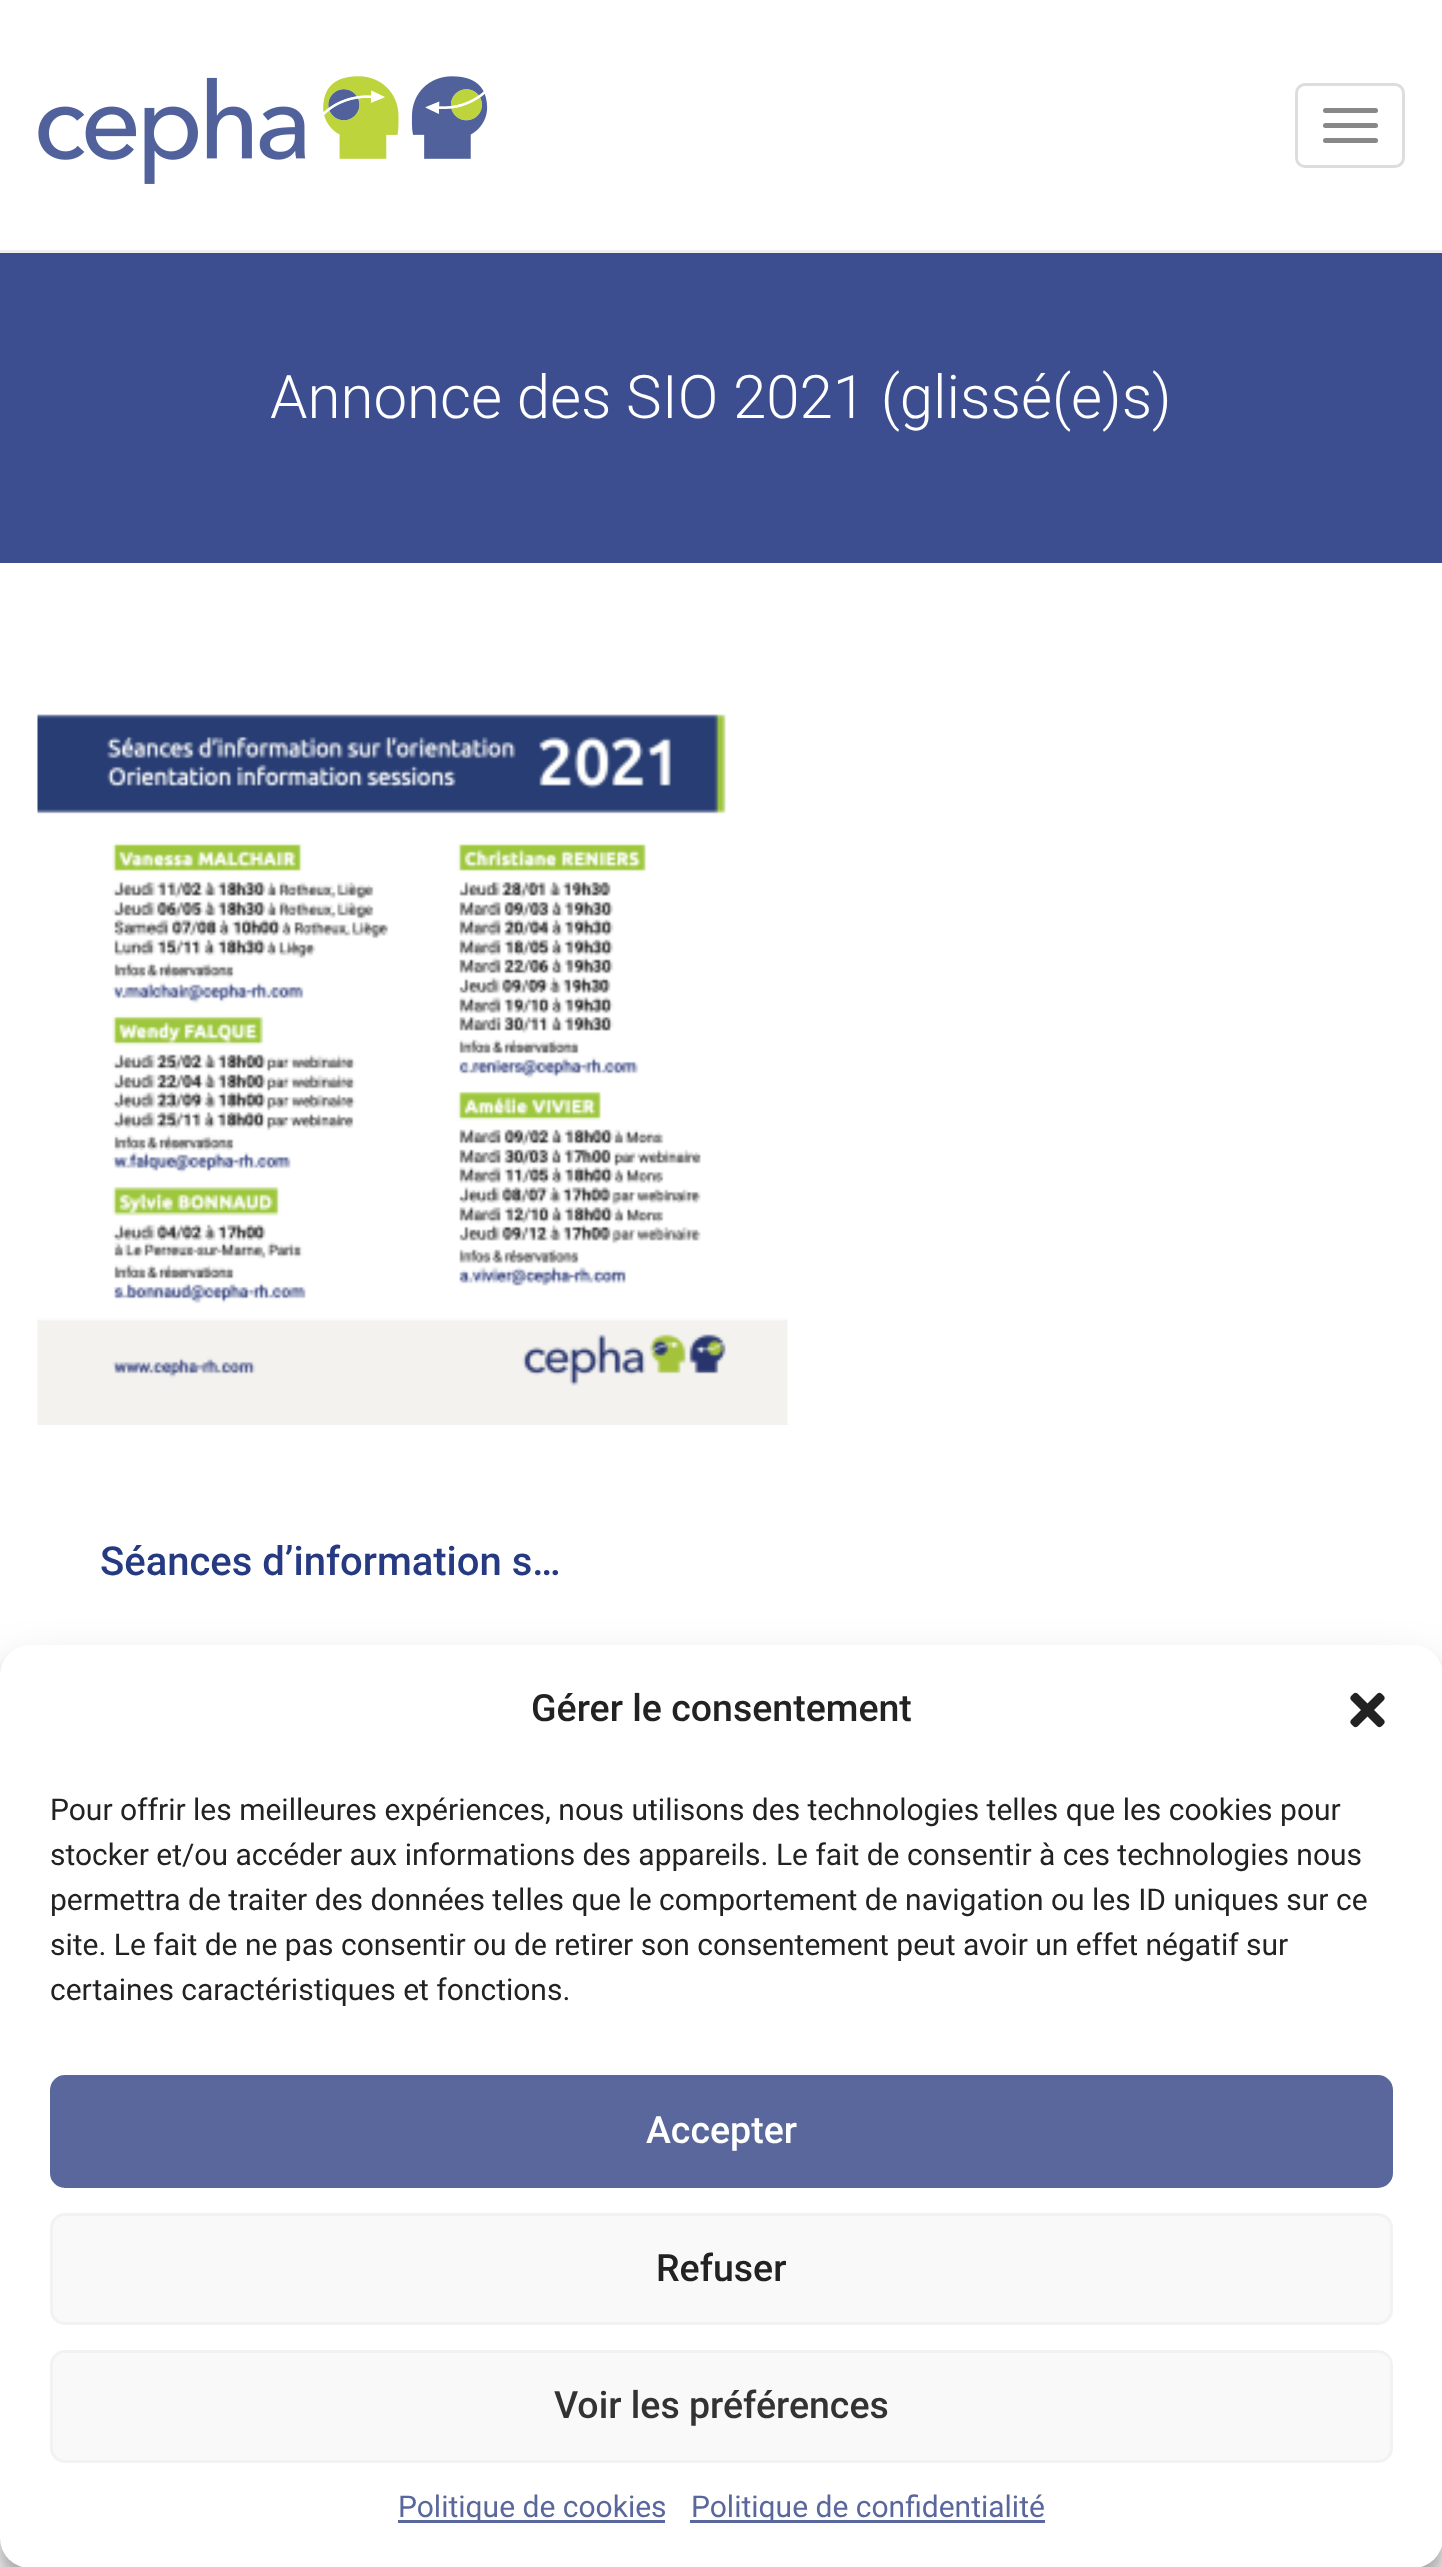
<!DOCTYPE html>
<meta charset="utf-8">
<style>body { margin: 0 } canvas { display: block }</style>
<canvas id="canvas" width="1442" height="2567"></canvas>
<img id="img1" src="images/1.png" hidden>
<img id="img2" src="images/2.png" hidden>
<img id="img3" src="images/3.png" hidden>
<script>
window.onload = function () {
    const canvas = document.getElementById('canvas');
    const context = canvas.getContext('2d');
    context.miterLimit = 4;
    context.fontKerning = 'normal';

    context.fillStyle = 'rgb(255, 255, 255)';
    context.fillRect(0, 0, 1442, 2567);
    context.fillStyle = 'rgb(238, 238, 238)';
    context.fillRect(0, 250, 1442, 3);
    context.drawImage(document.getElementById('img1'), 38, 76, 450, 108);
    context.beginPath();
    context.roundRect(1296.5, 84.5, 107, 82, 8.5);
    context.strokeStyle = 'rgb(221, 221, 221)';
    context.lineWidth = 3;
    context.stroke();
    context.fillStyle = 'rgb(136, 136, 136)';
    context.beginPath();
    context.roundRect(1323, 108, 55, 5, 2.5);
    context.fill();
    context.beginPath();
    context.roundRect(1323, 123, 55, 5, 2.5);
    context.fill();
    context.beginPath();
    context.roundRect(1323, 138, 55, 5, 2.5);
    context.fill();
    context.fillStyle = 'rgb(60, 78, 143)';
    context.fillRect(0, 253, 1442, 310);
    context.drawImage(document.getElementById('img2'), 37, 714, 751, 711);
    context.fillStyle = 'rgba(0, 0, 0, 0.23)';
    context.filter = 'blur(7.5px)';
    context.beginPath();
    context.roundRect(0, 1660, 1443, 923, 30);
    context.fill();
    context.filter = 'none';
    context.fillStyle = 'rgba(0, 0, 0, 0.19)';
    context.filter = 'blur(25px)';
    context.beginPath();
    context.roundRect(0, 1670, 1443, 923, 30);
    context.fill();
    context.filter = 'none';
    context.fillStyle = 'rgb(255, 255, 255)';
    context.beginPath();
    context.roundRect(0, 1645, 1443, 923, 30);
    context.fill();
    context.drawImage(document.getElementById('img3'), 1350, 1692, 35, 36);
    context.fillStyle = 'rgb(89, 103, 157)';
    context.beginPath();
    context.roundRect(51.5, 2076.5, 1340, 110, 13.5);
    context.fill();
    context.strokeStyle = 'rgb(89, 103, 157)';
    context.stroke();
    context.fillStyle = 'rgb(249, 249, 249)';
    context.beginPath();
    context.roundRect(51.5, 2214.5, 1340, 109, 13.5);
    context.fill();
    context.strokeStyle = 'rgb(242, 242, 242)';
    context.stroke();
    context.beginPath();
    context.roundRect(51.5, 2351.5, 1340, 110, 13.5);
    context.fill();
    context.stroke();
    context.fillStyle = 'rgb(89, 103, 157)';
    context.fillRect(398, 2520, 267, 3);
    context.fillRect(690, 2520, 355, 3);
    context.font = '300 60px Roboto';
    context.fillStyle = 'rgb(255, 255, 255)';
    context.fillText('Annonce des SIO 2021 (glissé(e)s)', 270, 418);
    context.font = '500 40px Roboto';
    context.fillStyle = 'rgb(38, 58, 130)';
    context.fillText('Séances d’information s…', 100, 1575);
    context.font = '500 37.5px Roboto';
    context.fillStyle = 'rgb(34, 34, 34)';
    context.fillText('Gérer le consentement', 531, 1721);
    context.font = '30px Roboto';
    context.fillText('Pour offrir les meilleures expériences, nous utilisons des technologies telles que les cookies pour', 50, 1820);
    context.fillText('stocker et/ou accéder aux informations des appareils. Le fait de consentir à ces technologies nous', 50, 1865);
    context.fillText('permettra de traiter des données telles que le comportement de navigation ou les ID uniques sur ce', 50, 1910);
    context.fillText('site. Le fait de ne pas consentir ou de retirer son consentement peut avoir un effet négatif sur', 50, 1955);
    context.fillText('certaines caractéristiques et fonctions.', 50, 2000);
    context.font = '500 37.5px Roboto';
    context.fillStyle = 'rgb(255, 255, 255)';
    context.fillText('Accepter', 646, 2143);
    context.fillStyle = 'rgb(34, 34, 34)';
    context.fillText('Refuser', 656, 2281);
    context.fillStyle = 'rgb(51, 51, 51)';
    context.fillText('Voir les préférences', 554, 2418);
    context.font = '30px Roboto';
    context.fillStyle = 'rgb(89, 103, 157)';
    context.fillText('Politique de cookies', 398, 2517);
    context.fillText('Politique de confidentialité', 691, 2517);
};
</script>
